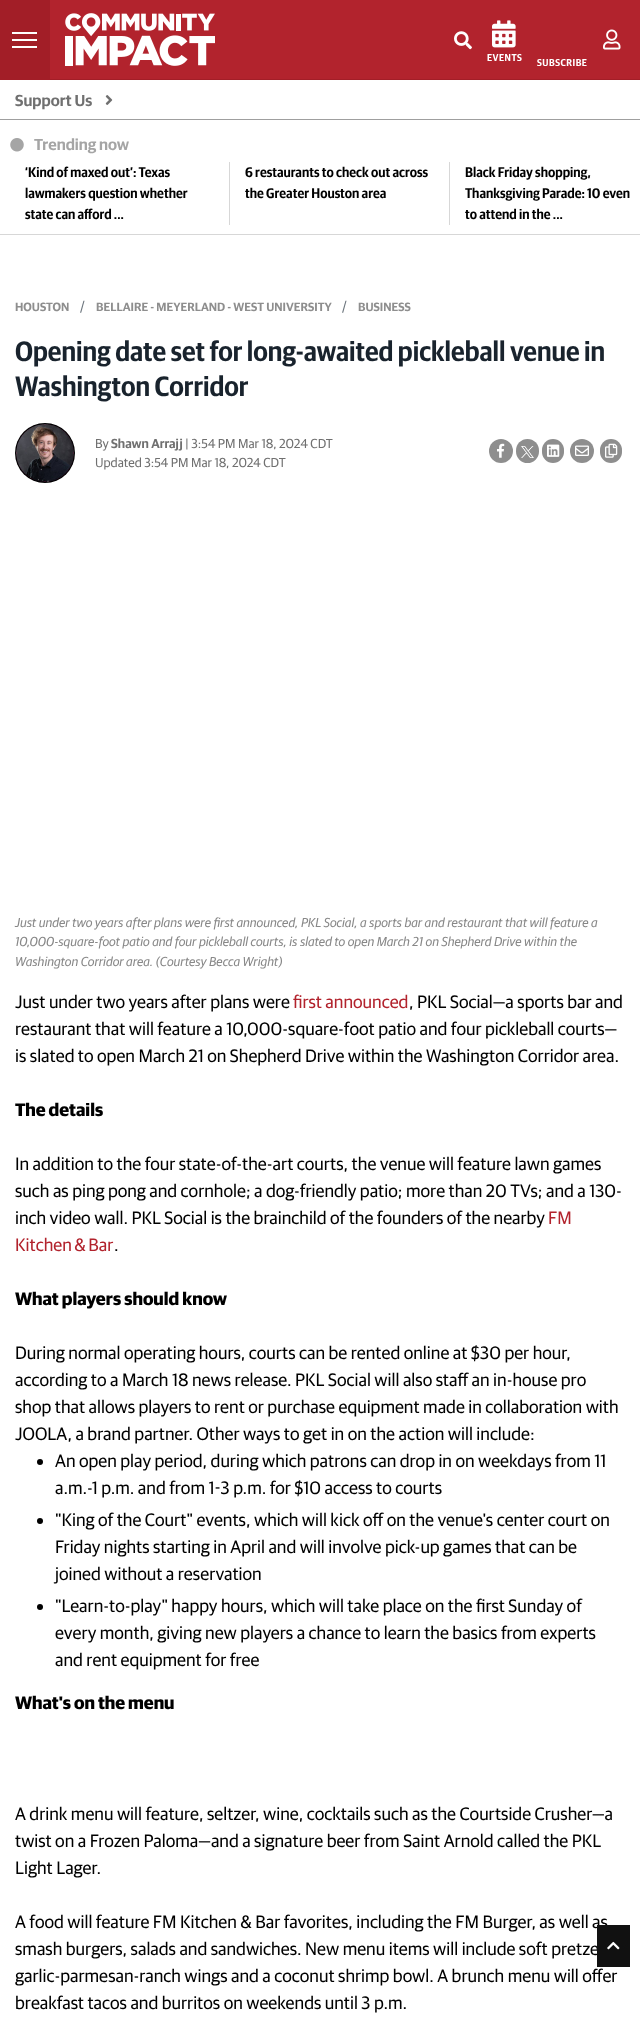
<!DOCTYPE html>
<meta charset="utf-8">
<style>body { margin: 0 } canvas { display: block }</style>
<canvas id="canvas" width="640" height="2032"></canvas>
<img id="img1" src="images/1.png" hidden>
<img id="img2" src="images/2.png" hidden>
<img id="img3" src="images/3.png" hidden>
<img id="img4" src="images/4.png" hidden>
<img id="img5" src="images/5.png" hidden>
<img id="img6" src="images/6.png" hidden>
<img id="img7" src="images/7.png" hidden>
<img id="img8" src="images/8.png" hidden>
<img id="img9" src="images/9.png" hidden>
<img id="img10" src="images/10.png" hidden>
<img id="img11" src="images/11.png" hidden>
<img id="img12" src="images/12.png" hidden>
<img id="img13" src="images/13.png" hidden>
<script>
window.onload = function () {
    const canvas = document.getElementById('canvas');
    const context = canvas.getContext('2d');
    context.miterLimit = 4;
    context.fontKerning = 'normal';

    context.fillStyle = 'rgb(255, 255, 255)';
    context.fillRect(0, 0, 640, 2032);
    context.fillStyle = 'rgb(178, 35, 45)';
    context.fillRect(50, 0, 590, 79);
    context.fillStyle = 'rgb(162, 30, 39)';
    context.fillRect(50, 79, 590, 1);
    context.fillRect(0, 0, 50, 80);
    context.fillStyle = 'rgb(255, 255, 255)';
    context.fillRect(12, 39, 25, 2);
    context.fillRect(12, 32, 25, 2);
    context.fillRect(12, 46, 25, 2);
    context.drawImage(document.getElementById('img1'), 65, 13, 150, 53);
    context.drawImage(document.getElementById('img2'), 454, 31, 18, 19);
    context.drawImage(document.getElementById('img3'), 603, 29, 18, 21);
    context.drawImage(document.getElementById('img4'), 492, 20, 24, 28);
    context.fillStyle = 'rgb(159, 159, 159)';
    context.fillRect(0, 119, 640, 1);
    context.drawImage(document.getElementById('img5'), 105, 95, 8, 10);
    context.fillStyle = 'rgb(215, 215, 215)';
    context.fillRect(0, 234, 640, 1);
    context.drawImage(document.getElementById('img6'), 10, 138, 14, 14);
    context.fillRect(229, 162, 1, 63);
    context.fillRect(449, 162, 1, 63);
    context.drawImage(document.getElementById('img7'), 15, 423, 60, 60);
    context.fillStyle = 'rgb(142, 142, 142)';
    context.beginPath();
    context.arc(501, 451, 12, 0, 2 * Math.PI);
    context.fill();
    context.drawImage(document.getElementById('img8'), 497, 443, 8, 15);
    context.beginPath();
    context.roundRect(516, 439, 23, 24, 11.5);
    context.fill();
    context.drawImage(document.getElementById('img9'), 521, 446, 13, 12);
    context.beginPath();
    context.roundRect(542, 439, 22, 24, 11);
    context.fill();
    context.drawImage(document.getElementById('img10'), 547, 444, 13, 13);
    context.beginPath();
    context.arc(582, 451, 12, 0, 2 * Math.PI);
    context.fill();
    context.drawImage(document.getElementById('img11'), 575, 445, 14, 11);
    context.beginPath();
    context.roundRect(600, 439, 22, 24, 11);
    context.fill();
    context.drawImage(document.getElementById('img12'), 605, 443, 13, 15);
    context.fillStyle = 'rgb(0, 0, 0)';
    context.beginPath();
    context.arc(40, 1462, 3, 0, 2 * Math.PI);
    context.fill();
    context.beginPath();
    context.arc(40, 1521, 3, 0, 2 * Math.PI);
    context.fill();
    context.beginPath();
    context.arc(40, 1607, 3, 0, 2 * Math.PI);
    context.fill();
    context.letterSpacing = '0.5px';
    context.font = '600 10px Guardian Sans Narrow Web';
    context.fillStyle = 'rgb(255, 255, 255)';
    context.fillText('EVENTS', 487, 61);
    context.fillText('SUBSCRIBE', 537, 66);
    context.letterSpacing = '0px';
    context.font = '600 16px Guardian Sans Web';
    context.fillStyle = 'rgb(112, 112, 112)';
    context.fillText('Support Us', 15, 106);
    context.fillStyle = 'rgb(165, 165, 165)';
    context.fillText('Trending now', 34, 150);
    context.font = '600 14px Guardian Sans Narrow Web';
    context.fillStyle = 'rgb(0, 0, 0)';
    context.fillText('‘Kind of maxed out’: Texas', 25, 177);
    context.fillText('lawmakers question whether', 25, 198);
    context.fillText('state can afford ...', 25, 219);
    context.fillText('6 restaurants to check out across', 245, 177);
    context.fillText('the Greater Houston area', 245, 198);
    context.fillText('Black Friday shopping,', 465, 177);
    context.fillText('Thanksgiving Parade: 10 even', 465, 198);
    context.fillText('to attend in the ...', 465, 219);
    context.font = '600 12px Guardian Sans Web';
    context.fillStyle = 'rgb(142, 142, 142)';
    context.fillText('HOUSTON', 15, 311);
    context.font = '14px Guardian Sans Web';
    context.fillStyle = 'rgb(108, 117, 125)';
    context.fillText('/', 80, 311);
    context.font = '600 12px Guardian Sans Web';
    context.fillStyle = 'rgb(142, 142, 142)';
    context.fillText('BELLAIRE - MEYERLAND - WEST UNIVERSITY', 96, 311);
    context.font = '14px Guardian Sans Web';
    context.fillStyle = 'rgb(108, 117, 125)';
    context.fillText('/', 342, 311);
    context.font = '600 12px Guardian Sans Web';
    context.fillStyle = 'rgb(142, 142, 142)';
    context.fillText('BUSINESS', 358, 311);
    context.font = '600 28px Guardian Sans Narrow Web';
    context.fillStyle = 'rgb(25, 35, 45)';
    context.fillText('Opening date set for long-awaited pickleball venue in', 15, 361);
    context.fillText('Washington Corridor', 15, 396);
    context.font = '13px Guardian Sans Web';
    context.fillStyle = 'rgb(112, 112, 112)';
    context.fillText('By', 95, 448);
    context.font = '600 13px Guardian Sans Web';
    context.fillText('Shawn Arrajj', 111, 448);
    context.font = '13px Guardian Sans Web';
    context.fillText('| 3:54 PM Mar 18, 2024 CDT', 185, 448);
    context.fillText('Updated 3:54 PM Mar 18, 2024 CDT', 95, 467);
    context.font = 'italic 13px Guardian Sans Web';
    context.fillStyle = 'rgb(136, 136, 136)';
    context.fillText('Just under two years after plans were first announced, PKL Social, a sports bar and restaurant that will feature a', 15, 927);
    context.fillText('10,000-square-foot patio and four pickleball courts, is slated to open March 21 on Shepherd Drive within the', 15, 946);
    context.fillText('Washington Corridor area. (Courtesy Becca Wright)', 15, 966);
    context.font = '18px Guardian Sans Web';
    context.fillStyle = 'rgb(0, 0, 0)';
    context.fillText('Just under two years after plans were', 15, 1008);
    context.fillStyle = 'rgb(178, 35, 45)';
    context.fillText('first announced', 293, 1008);
    context.fillStyle = 'rgb(0, 0, 0)';
    context.fillText(', PKL Social—a sports bar and', 409, 1008);
    context.fillText('restaurant that will feature a 10,000-square-foot patio and four pickleball courts—', 15, 1035);
    context.fillText('is slated to open March 21 on Shepherd Drive within the Washington Corridor area.', 15, 1062);
    context.font = 'bold 18px Guardian Sans Web';
    context.fillText('The details', 15, 1116);
    context.font = '18px Guardian Sans Web';
    context.fillText('In addition to the four state-of-the-art courts, the venue will feature lawn games', 15, 1170);
    context.fillText('such as ping pong and cornhole; a dog-friendly patio; more than 20 TVs; and a 130-', 15, 1197);
    context.fillText('inch video wall. PKL Social is the brainchild of the founders of the nearby', 15, 1224);
    context.fillStyle = 'rgb(178, 35, 45)';
    context.fillText('FM', 548, 1224);
    context.wordSpacing = '-1px';
    context.fillText('Kitchen & Bar', 15, 1251);
    context.wordSpacing = '0px';
    context.fillStyle = 'rgb(0, 0, 0)';
    context.fillText('.', 114, 1251);
    context.font = 'bold 18px Guardian Sans Web';
    context.fillText('What players should know', 15, 1305);
    context.font = '18px Guardian Sans Web';
    context.fillText('During normal operating hours, courts can be rented online at $30 per hour,', 15, 1359);
    context.fillText('according to a March 18 news release. PKL Social will also staff an in-house pro', 15, 1386);
    context.fillText('shop that allows players to rent or purchase equipment made in collaboration with', 15, 1413);
    context.fillText('JOOLA, a brand partner. Other ways to get in on the action will include:', 15, 1440);
    context.fillText('An open play period, during which patrons can drop in on weekdays from 11', 55, 1467);
    context.fillText('a.m.-1 p.m. and from 1-3 p.m. for $10 access to courts', 55, 1494);
    context.fillText('"King of the Court" events, which will kick off on the venue\'s center court on', 55, 1526);
    context.fillText('Friday nights starting in April and will involve pick-up games that can be', 55, 1553);
    context.fillText('joined without a reservation', 55, 1580);
    context.fillText('"Learn-to-play" happy hours, which will take place on the first Sunday of', 55, 1612);
    context.fillText('every month, giving new players a chance to learn the basics from experts', 55, 1639);
    context.fillText('and rent equipment for free', 55, 1666);
    context.font = 'bold 18px Guardian Sans Web';
    context.fillText('What\'s on the menu', 15, 1709);
    context.font = '18px Guardian Sans Web';
    context.fillText('A drink menu will feature, seltzer, wine, cocktails such as the Courtside Crusher—a', 15, 1820);
    context.fillText('twist on a Frozen Paloma—and a signature beer from Saint Arnold called the PKL', 15, 1847);
    context.fillText('Light Lager.', 15, 1874);
    context.fillText('A food will feature FM Kitchen & Bar favorites, including the FM Burger, as well as', 15, 1928);
    context.fillText('smash burgers, salads and sandwiches. New menu items will include soft pretze', 15, 1955);
    context.fillText('garlic-parmesan-ranch wings and a coconut shrimp bowl. A brunch menu will offer', 15, 1982);
    context.fillText('breakfast tacos and burritos on weekends until 3 p.m.', 15, 2009);
    context.fillStyle = 'rgb(17, 17, 17)';
    context.fillRect(597, 1925, 33, 42);
    context.drawImage(document.getElementById('img13'), 607, 1941, 13, 9);
};
</script>
